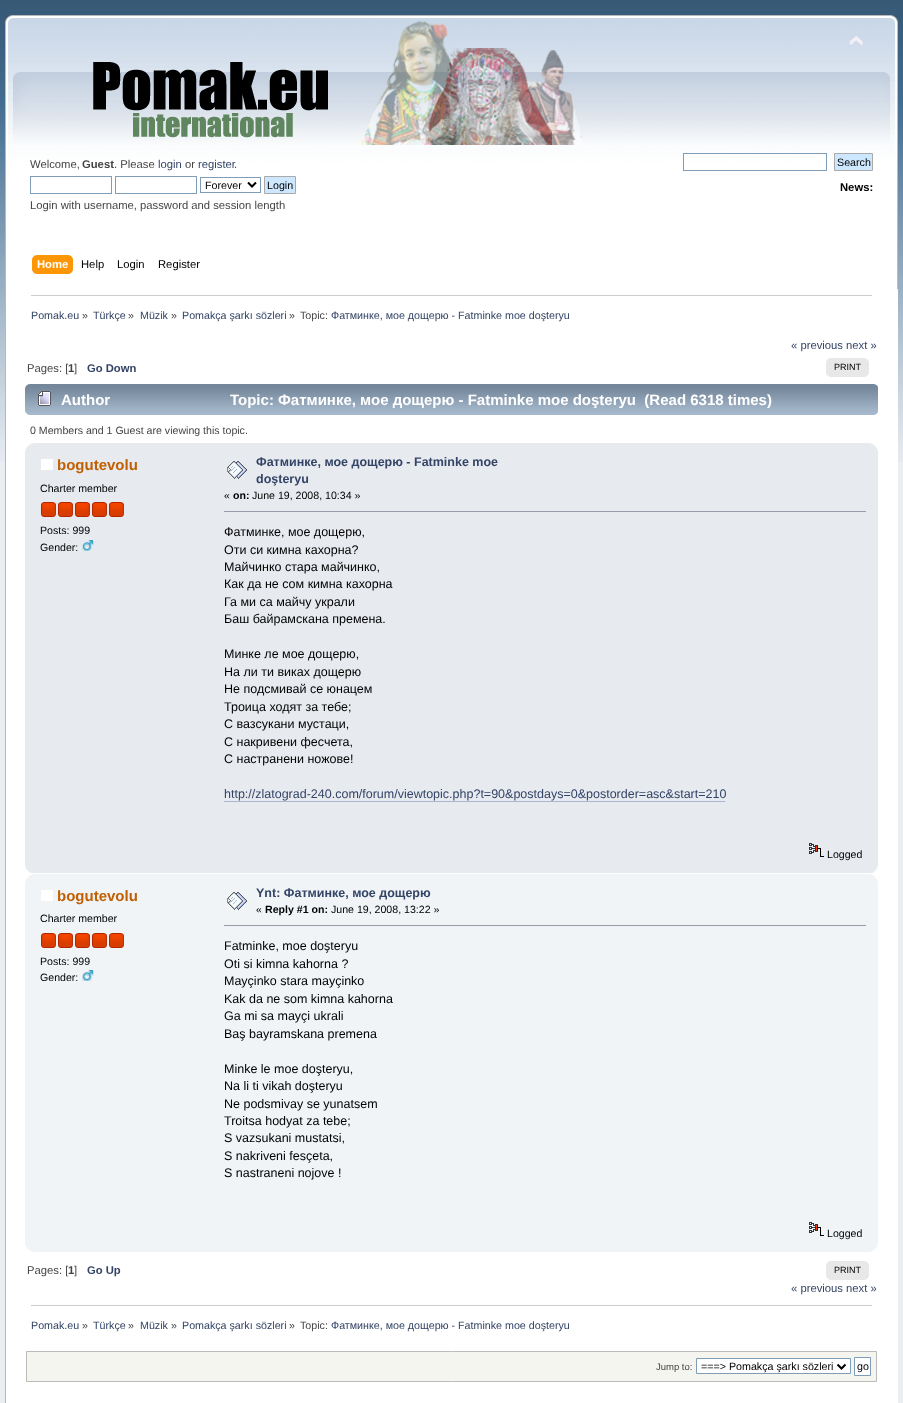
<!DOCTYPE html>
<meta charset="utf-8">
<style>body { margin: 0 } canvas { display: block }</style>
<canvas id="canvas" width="903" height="1403"></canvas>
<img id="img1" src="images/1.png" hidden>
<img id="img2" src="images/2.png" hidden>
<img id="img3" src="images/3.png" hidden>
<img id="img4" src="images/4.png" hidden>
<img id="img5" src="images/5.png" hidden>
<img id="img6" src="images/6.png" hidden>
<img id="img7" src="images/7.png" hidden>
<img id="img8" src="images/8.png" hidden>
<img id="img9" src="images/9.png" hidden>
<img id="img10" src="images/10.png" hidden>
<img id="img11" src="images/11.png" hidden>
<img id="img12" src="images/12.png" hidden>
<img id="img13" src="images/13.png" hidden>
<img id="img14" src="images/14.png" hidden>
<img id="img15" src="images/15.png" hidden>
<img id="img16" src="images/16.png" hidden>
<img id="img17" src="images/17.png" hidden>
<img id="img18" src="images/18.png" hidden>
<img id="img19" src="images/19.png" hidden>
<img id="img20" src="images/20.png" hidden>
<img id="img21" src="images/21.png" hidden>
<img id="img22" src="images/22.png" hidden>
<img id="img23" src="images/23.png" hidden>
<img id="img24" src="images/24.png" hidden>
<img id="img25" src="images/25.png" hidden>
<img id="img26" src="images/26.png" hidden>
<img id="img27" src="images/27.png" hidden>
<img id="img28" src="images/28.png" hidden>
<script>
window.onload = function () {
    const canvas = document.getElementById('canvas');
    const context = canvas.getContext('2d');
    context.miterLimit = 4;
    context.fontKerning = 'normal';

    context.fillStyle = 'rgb(233, 238, 242)';
    context.fillRect(0, 0, 903, 1403);
    context.drawImage(document.getElementById('img1'), 0, 0, 903, 462);
    context.drawImage(document.getElementById('img2'), 5, 15, 880, 274);
    context.drawImage(document.getElementById('img3'), 885, 15, 13, 274);
    context.fillStyle = 'rgb(222, 215, 213)';
    context.fillRect(833, 20, 1, 1);
    context.drawImage(document.getElementById('img4'), 93, 21, 489, 124);
    context.drawImage(document.getElementById('img5'), 849, 35, 15, 12);
    context.strokeStyle = 'rgb(127, 157, 185)';
    context.strokeRect(30.5, 176.5, 81, 17);
    context.strokeRect(115.5, 176.5, 81, 17);
    context.strokeRect(200.5, 177.5, 60, 15);
    context.beginPath();
    context.moveTo(248, 182.5);
    context.lineTo(252, 186.5);
    context.lineTo(256, 182.5);
    context.strokeStyle = 'rgb(0, 0, 0)';
    context.lineWidth = 2;
    context.stroke();
    context.fillStyle = 'rgb(205, 231, 255)';
    context.beginPath();
    context.rect(264.5, 176.5, 31, 17);
    context.fill();
    context.strokeStyle = 'rgb(170, 170, 170)';
    context.lineWidth = 1;
    context.stroke();
    context.fillStyle = 'rgb(255, 255, 255)';
    context.fillRect(684, 154, 137, 1);
    context.strokeStyle = 'rgb(127, 157, 185)';
    context.strokeRect(683.5, 153.5, 143, 17);
    context.fillStyle = 'rgb(205, 231, 255)';
    context.beginPath();
    context.rect(834.5, 153.5, 38, 17);
    context.fill();
    context.strokeStyle = 'rgb(170, 170, 170)';
    context.stroke();
    context.drawImage(document.getElementById('img6'), 37, 255, 36, 19);
    context.drawImage(document.getElementById('img7'), 32, 255, 5, 19);
    context.fillStyle = 'rgb(255, 255, 255)';
    context.fillRect(6, 289, 892, 1114);
    context.fillStyle = 'rgb(183, 183, 183)';
    context.fillRect(5, 289, 1, 1114);
    context.fillStyle = 'rgb(204, 204, 204)';
    context.fillRect(31, 295, 841, 1);
    context.fillStyle = 'rgb(232, 232, 232)';
    context.fillRect(830, 358, 35, 19);
    context.drawImage(document.getElementById('img8'), 826, 358, 4, 19);
    context.drawImage(document.getElementById('img9'), 865, 358, 4, 19);
    context.drawImage(document.getElementById('img10'), 25, 384, 849, 31);
    context.drawImage(document.getElementById('img11'), 874, 384, 4, 31);
    context.drawImage(document.getElementById('img12'), 38, 391, 13, 15);
    context.fillStyle = 'rgb(231, 234, 239)';
    context.fillRect(25, 443, 853, 430);
    context.drawImage(document.getElementById('img13'), 25, 443, 9, 9);
    context.drawImage(document.getElementById('img14'), 870, 443, 8, 8);
    context.fillStyle = 'rgb(255, 255, 255)';
    context.fillRect(41, 459, 12, 11);
    context.drawImage(document.getElementById('img15'), 41, 502, 15, 15);
    context.drawImage(document.getElementById('img15'), 58, 502, 15, 15);
    context.drawImage(document.getElementById('img15'), 75, 502, 15, 15);
    context.drawImage(document.getElementById('img15'), 92, 502, 15, 15);
    context.drawImage(document.getElementById('img15'), 109, 502, 15, 15);
    context.drawImage(document.getElementById('img16'), 82, 540, 12, 11);
    context.drawImage(document.getElementById('img17'), 227, 461, 20, 18);
    context.fillStyle = 'rgb(153, 153, 170)';
    context.fillRect(224, 511, 642, 1);
    context.fillStyle = 'rgb(168, 182, 207)';
    context.fillRect(224, 801, 501, 1);
    context.drawImage(document.getElementById('img18'), 809, 843, 15, 14);
    context.drawImage(document.getElementById('img19'), 25, 865, 6, 8);
    context.drawImage(document.getElementById('img20'), 873, 866, 5, 7);
    context.fillStyle = 'rgb(240, 244, 247)';
    context.fillRect(25, 874, 853, 378);
    context.drawImage(document.getElementById('img21'), 25, 874, 8, 8);
    context.drawImage(document.getElementById('img22'), 870, 874, 8, 8);
    context.fillStyle = 'rgb(255, 255, 255)';
    context.fillRect(41, 890, 12, 11);
    context.drawImage(document.getElementById('img23'), 41, 933, 15, 15);
    context.drawImage(document.getElementById('img23'), 58, 933, 15, 15);
    context.drawImage(document.getElementById('img23'), 75, 933, 15, 15);
    context.drawImage(document.getElementById('img23'), 92, 933, 15, 15);
    context.drawImage(document.getElementById('img23'), 109, 933, 15, 15);
    context.drawImage(document.getElementById('img24'), 82, 970, 12, 11);
    context.drawImage(document.getElementById('img25'), 227, 892, 20, 18);
    context.fillStyle = 'rgb(153, 153, 170)';
    context.fillRect(224, 925, 642, 1);
    context.drawImage(document.getElementById('img26'), 809, 1222, 15, 14);
    context.drawImage(document.getElementById('img27'), 25, 1244, 8, 8);
    context.drawImage(document.getElementById('img28'), 870, 1244, 8, 8);
    context.fillStyle = 'rgb(232, 232, 232)';
    context.fillRect(830, 1261, 35, 19);
    context.drawImage(document.getElementById('img8'), 826, 1261, 4, 19);
    context.drawImage(document.getElementById('img9'), 865, 1261, 4, 19);
    context.fillStyle = 'rgb(204, 204, 204)';
    context.fillRect(31, 1305, 841, 1);
    context.fillStyle = 'rgb(245, 245, 240)';
    context.beginPath();
    context.rect(26.5, 1351.5, 850, 30);
    context.fill();
    context.strokeStyle = 'rgb(187, 187, 187)';
    context.stroke();
    context.fillStyle = 'rgb(255, 255, 255)';
    context.beginPath();
    context.rect(696.5, 1358.5, 154, 15);
    context.fill();
    context.strokeStyle = 'rgb(127, 157, 185)';
    context.stroke();
    context.beginPath();
    context.moveTo(837.5, 1364.5);
    context.lineTo(841.5, 1368.5);
    context.lineTo(845.5, 1364.5);
    context.strokeStyle = 'rgb(0, 0, 0)';
    context.lineWidth = 2;
    context.stroke();
    context.beginPath();
    context.rect(854.5, 1357.5, 16, 18);
    context.fill();
    context.strokeStyle = 'rgb(127, 157, 185)';
    context.lineWidth = 1;
    context.stroke();
    context.font = '11.25px Liberation Sans';
    context.fillStyle = 'rgb(68, 68, 68)';
    context.fillText('Welcome,', 30, 168);
    context.font = 'bold 11.25px Liberation Sans';
    context.fillText('Guest', 82, 168);
    context.font = '11.25px Liberation Sans';
    context.fillText('. Please', 114, 168);
    context.fillStyle = 'rgb(51, 68, 102)';
    context.fillText('login', 158, 168);
    context.fillStyle = 'rgb(68, 68, 68)';
    context.fillText('or', 185, 168);
    context.fillStyle = 'rgb(51, 68, 102)';
    context.fillText('register', 198, 168);
    context.fillStyle = 'rgb(68, 68, 68)';
    context.fillText('.', 234, 168);
    context.font = '10.7px Liberation Sans';
    context.fillStyle = 'rgb(0, 0, 0)';
    context.fillText('Forever', 205, 189);
    context.fillText('Login', 267, 189);
    context.font = '11.25px Liberation Sans';
    context.fillStyle = 'rgb(68, 68, 68)';
    context.fillText('Login with username, password and session length', 30, 209);
    context.font = '10.7px Liberation Sans';
    context.fillStyle = 'rgb(0, 0, 0)';
    context.fillText('Search', 837, 166);
    context.font = 'bold 11.25px Liberation Sans';
    context.fillText('News:', 840, 191);
    context.fillStyle = 'rgb(255, 255, 255)';
    context.fillText('Home', 37, 268);
    context.font = '11.25px Liberation Sans';
    context.fillStyle = 'rgb(0, 0, 0)';
    context.fillText('Help', 81, 268);
    context.fillText('Login', 117, 268);
    context.fillText('Register', 158, 268);
    context.font = '10.7px Liberation Sans';
    context.fillStyle = 'rgb(51, 68, 102)';
    context.fillText('Pomak.eu', 31, 319);
    context.fillStyle = 'rgb(68, 68, 68)';
    context.fillText('»', 82, 319);
    context.fillStyle = 'rgb(51, 68, 102)';
    context.fillText('Türkçe', 93, 319);
    context.fillStyle = 'rgb(68, 68, 68)';
    context.fillText('»', 128, 319);
    context.fillStyle = 'rgb(51, 68, 102)';
    context.fillText('Müzik', 140, 319);
    context.fillStyle = 'rgb(68, 68, 68)';
    context.fillText('»', 171, 319);
    context.fillStyle = 'rgb(51, 68, 102)';
    context.fillText('Pomakça şarkı sözleri', 182, 319);
    context.fillStyle = 'rgb(68, 68, 68)';
    context.fillText('»', 289, 319);
    context.fillText('Topic:', 300, 319);
    context.fillStyle = 'rgb(51, 68, 102)';
    context.fillText('Фатминке, мое дощерю - Fatminke moe doşteryu', 331, 319);
    context.font = '11.25px Liberation Sans';
    context.fillText('« previous next »', 791, 349);
    context.fillStyle = 'rgb(68, 68, 68)';
    context.fillText('Pages: [', 27, 372);
    context.font = 'bold 11.25px Liberation Sans';
    context.fillText('1', 68, 372);
    context.font = '11.25px Liberation Sans';
    context.fillText(']', 74, 372);
    context.font = 'bold 11.25px Liberation Sans';
    context.fillStyle = 'rgb(51, 68, 102)';
    context.fillText('Go Down', 87, 372);
    context.font = '9px Liberation Sans';
    context.fillStyle = 'rgb(0, 0, 0)';
    context.fillText('PRINT', 834, 370);
    context.font = 'bold 15px Liberation Sans';
    context.fillStyle = 'rgb(255, 255, 255)';
    context.fillText('Author', 61, 405);
    context.fillText('Topic: Фатминке, мое дощерю - Fatminke moe doşteryu  (Read 6318 times)', 230, 405);
    context.font = '10.6px Liberation Sans';
    context.fillStyle = 'rgb(68, 68, 68)';
    context.fillText('0 Members and 1 Guest are viewing this topic.', 30, 434);
    context.font = 'bold 15px Liberation Sans';
    context.fillStyle = 'rgb(192, 96, 2)';
    context.fillText('bogutevolu', 57, 470);
    context.font = '10.6px Liberation Sans';
    context.fillStyle = 'rgb(0, 0, 0)';
    context.fillText('Charter member', 40, 492);
    context.fillText('Posts: 999', 40, 534);
    context.fillText('Gender:', 40, 551);
    context.font = 'bold 12.5px Liberation Sans';
    context.fillStyle = 'rgb(51, 68, 102)';
    context.fillText('Фатминке, мое дощерю - Fatminke moe', 256, 466);
    context.fillText('doşteryu', 256, 483);
    context.font = '10.6px Liberation Sans';
    context.fillStyle = 'rgb(0, 0, 0)';
    context.fillText('«', 224, 499);
    context.font = 'bold 10.6px Liberation Sans';
    context.fillText('on:', 233, 499);
    context.font = '10.6px Liberation Sans';
    context.fillText('June 19, 2008, 10:34 »', 252, 499);
    context.font = '12.5px Liberation Sans';
    context.fillText('Фатминке, мое дощерю,', 224, 536);
    context.fillText('Оти си кимна кахорна?', 224, 554);
    context.fillText('Майчинко стара майчинко,', 224, 571);
    context.fillText('Как да не сом кимна кахорна', 224, 588);
    context.fillText('Га ми са майчу украли', 224, 606);
    context.fillText('Баш байрамскана премена.', 224, 623);
    context.fillText('Минке ле мое дощерю,', 224, 658);
    context.fillText('На ли ти виках дощерю', 224, 676);
    context.fillText('Не подсмивай се юнацем', 224, 693);
    context.fillText('Троица ходят за тебе;', 224, 711);
    context.fillText('С вазсукани мустаци,', 224, 728);
    context.fillText('С накривени фесчета,', 224, 746);
    context.fillText('С настранени ножове!', 224, 763);
    context.fillStyle = 'rgb(51, 68, 102)';
    context.fillText('http://zlatograd-240.com/forum/viewtopic.php?t=90&postdays=0&postorder=asc&start=210', 224, 798);
    context.font = '10.6px Liberation Sans';
    context.fillStyle = 'rgb(0, 0, 0)';
    context.fillText('Logged', 827, 858);
    context.font = 'bold 15px Liberation Sans';
    context.fillStyle = 'rgb(192, 96, 2)';
    context.fillText('bogutevolu', 57, 901);
    context.font = '10.6px Liberation Sans';
    context.fillStyle = 'rgb(0, 0, 0)';
    context.fillText('Charter member', 40, 922);
    context.fillText('Posts: 999', 40, 965);
    context.fillText('Gender:', 40, 981);
    context.font = 'bold 12.5px Liberation Sans';
    context.fillStyle = 'rgb(51, 68, 102)';
    context.fillText('Ynt: Фатминке, мое дощерю', 256, 897);
    context.font = '10.6px Liberation Sans';
    context.fillStyle = 'rgb(0, 0, 0)';
    context.fillText('«', 256, 913);
    context.font = 'bold 10.6px Liberation Sans';
    context.fillText('Reply #1 on:', 265, 913);
    context.font = '10.6px Liberation Sans';
    context.fillText('June 19, 2008, 13:22 »', 331, 913);
    context.font = '12.5px Liberation Sans';
    context.fillText('Fatminke, moe doşteryu', 224, 950);
    context.fillText('Oti si kimna kahorna ?', 224, 968);
    context.fillText('Mayçinko stara mayçinko', 224, 985);
    context.fillText('Kak da ne som kimna kahorna', 224, 1003);
    context.fillText('Ga mi sa mayçi ukrali', 224, 1020);
    context.fillText('Baş bayramskana premena', 224, 1038);
    context.fillText('Minke le moe doşteryu,', 224, 1073);
    context.fillText('Na li ti vikah doşteryu', 224, 1090);
    context.fillText('Ne podsmivay se yunatsem', 224, 1108);
    context.fillText('Troitsa hodyat za tebe;', 224, 1125);
    context.fillText('S vazsukani mustatsi,', 224, 1142);
    context.fillText('S nakriveni fesçeta,', 224, 1160);
    context.fillText('S nastraneni nojove !', 224, 1177);
    context.font = '10.6px Liberation Sans';
    context.fillText('Logged', 827, 1237);
    context.font = '11.25px Liberation Sans';
    context.fillStyle = 'rgb(68, 68, 68)';
    context.fillText('Pages: [', 27, 1274);
    context.font = 'bold 11.25px Liberation Sans';
    context.fillText('1', 68, 1274);
    context.font = '11.25px Liberation Sans';
    context.fillText(']', 74, 1274);
    context.font = 'bold 11.25px Liberation Sans';
    context.fillStyle = 'rgb(51, 68, 102)';
    context.fillText('Go Up', 87, 1274);
    context.font = '9px Liberation Sans';
    context.fillStyle = 'rgb(0, 0, 0)';
    context.fillText('PRINT', 834, 1273);
    context.font = '11.25px Liberation Sans';
    context.fillStyle = 'rgb(51, 68, 102)';
    context.fillText('« previous next »', 791, 1292);
    context.font = '10.7px Liberation Sans';
    context.fillText('Pomak.eu', 31, 1329);
    context.fillStyle = 'rgb(68, 68, 68)';
    context.fillText('»', 82, 1329);
    context.fillStyle = 'rgb(51, 68, 102)';
    context.fillText('Türkçe', 93, 1329);
    context.fillStyle = 'rgb(68, 68, 68)';
    context.fillText('»', 128, 1329);
    context.fillStyle = 'rgb(51, 68, 102)';
    context.fillText('Müzik', 140, 1329);
    context.fillStyle = 'rgb(68, 68, 68)';
    context.fillText('»', 171, 1329);
    context.fillStyle = 'rgb(51, 68, 102)';
    context.fillText('Pomakça şarkı sözleri', 182, 1329);
    context.fillStyle = 'rgb(68, 68, 68)';
    context.fillText('»', 289, 1329);
    context.fillText('Topic:', 300, 1329);
    context.fillStyle = 'rgb(51, 68, 102)';
    context.fillText('Фатминке, мое дощерю - Fatminke moe doşteryu', 331, 1329);
    context.font = '9.5px Liberation Sans';
    context.fillStyle = 'rgb(68, 68, 68)';
    context.fillText('Jump to:', 656, 1370);
    context.font = '10.7px Liberation Sans';
    context.fillStyle = 'rgb(0, 0, 0)';
    context.fillText('===> Pomakça şarkı sözleri', 701, 1370);
    context.fillText('go', 857, 1370);
};
</script>
